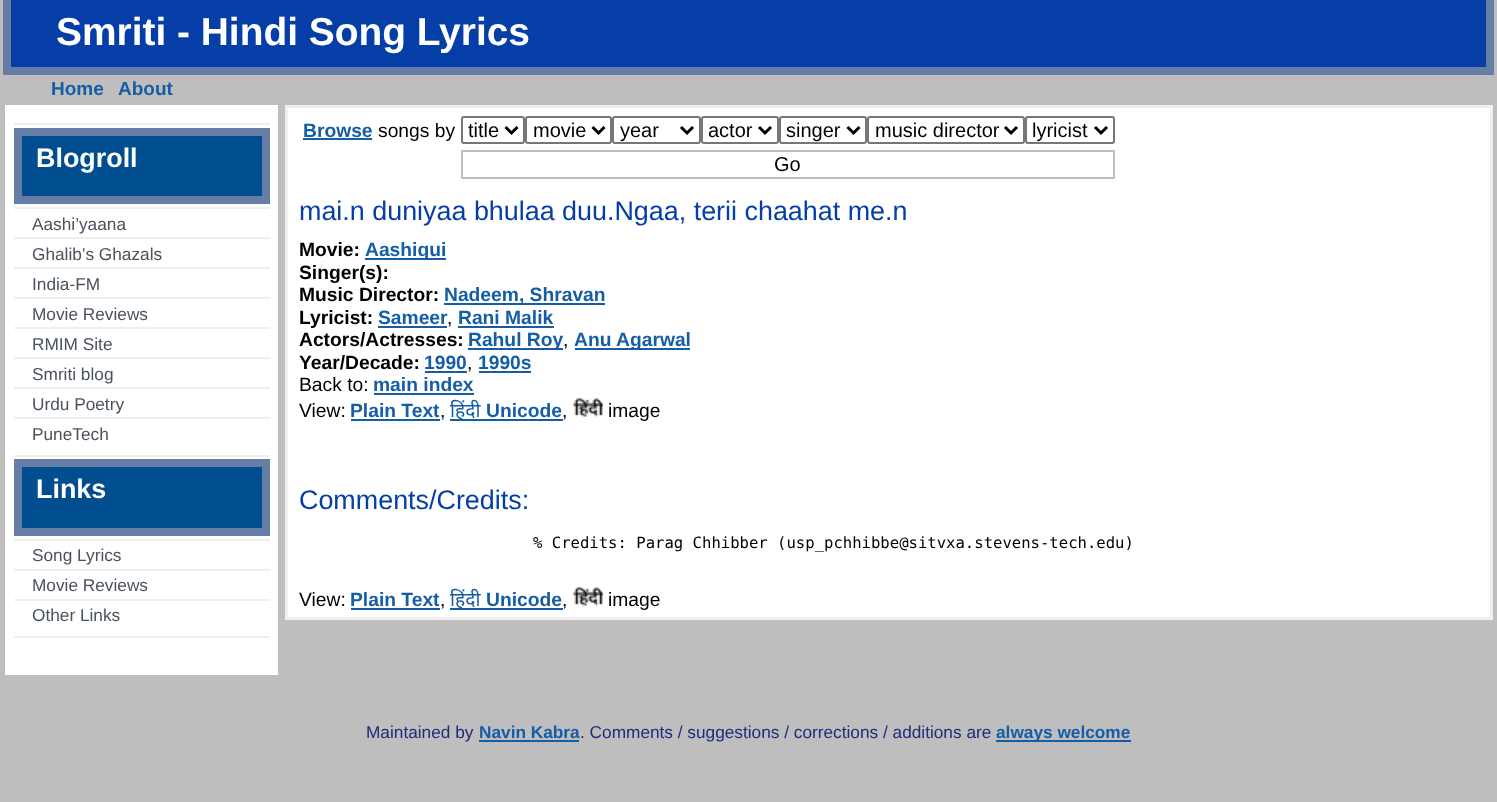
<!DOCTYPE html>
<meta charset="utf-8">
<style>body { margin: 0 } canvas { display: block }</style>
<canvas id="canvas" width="1497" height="802"></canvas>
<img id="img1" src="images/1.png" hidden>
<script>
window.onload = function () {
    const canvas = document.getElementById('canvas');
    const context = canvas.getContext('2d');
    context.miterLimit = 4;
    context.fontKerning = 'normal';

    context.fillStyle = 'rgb(190, 190, 190)';
    context.fillRect(0, 0, 1497, 802);
    context.fillStyle = 'rgb(5, 62, 166)';
    context.beginPath();
    context.rect(7, -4, 1483, 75);
    context.fill();
    context.strokeStyle = 'rgb(102, 125, 166)';
    context.lineWidth = 8;
    context.stroke();
    context.fillStyle = 'rgb(255, 255, 255)';
    context.fillRect(5, 105, 273, 570);
    context.fillStyle = 'rgb(239, 239, 239)';
    context.fillRect(14, 123, 256, 2);
    context.fillRect(14, 455, 256, 2);
    context.fillStyle = 'rgb(0, 77, 144)';
    context.beginPath();
    context.rect(18, 132, 248, 68);
    context.fill();
    context.stroke();
    context.fillStyle = 'rgb(239, 239, 239)';
    context.fillRect(14, 207, 256, 2);
    context.fillRect(14, 237, 256, 2);
    context.fillRect(14, 267, 256, 2);
    context.fillRect(14, 297, 256, 2);
    context.fillRect(14, 327, 256, 2);
    context.fillRect(14, 357, 256, 2);
    context.fillRect(14, 387, 256, 2);
    context.fillRect(14, 417, 256, 2);
    context.fillRect(14, 636, 256, 2);
    context.fillStyle = 'rgb(0, 77, 144)';
    context.beginPath();
    context.rect(18, 463, 248, 69);
    context.fill();
    context.stroke();
    context.fillStyle = 'rgb(239, 239, 239)';
    context.fillRect(14, 539, 256, 2);
    context.fillRect(14, 569, 256, 2);
    context.fillRect(14, 599, 256, 2);
    context.fillRect(285, 105, 1208, 515);
    context.fillStyle = 'rgb(255, 255, 255)';
    context.fillRect(288, 108, 1202, 509);
    context.fillStyle = 'rgb(21, 94, 165)';
    context.fillRect(303, 138, 69, 2);
    context.beginPath();
    context.roundRect(462, 117, 62, 26, 2);
    context.strokeStyle = 'rgb(118, 118, 118)';
    context.lineWidth = 2;
    context.stroke();
    context.beginPath();
    context.moveTo(505.5, 127);
    context.lineTo(511.5, 133);
    context.lineTo(517.5, 127);
    context.strokeStyle = 'rgb(0, 0, 0)';
    context.lineWidth = 3;
    context.stroke();
    context.beginPath();
    context.roundRect(526, 117, 85, 26, 2);
    context.strokeStyle = 'rgb(118, 118, 118)';
    context.lineWidth = 2;
    context.stroke();
    context.beginPath();
    context.moveTo(592.5, 127);
    context.lineTo(598.5, 133);
    context.lineTo(604.5, 127);
    context.strokeStyle = 'rgb(0, 0, 0)';
    context.lineWidth = 3;
    context.stroke();
    context.beginPath();
    context.roundRect(613, 117, 87, 26, 2);
    context.strokeStyle = 'rgb(118, 118, 118)';
    context.lineWidth = 2;
    context.stroke();
    context.beginPath();
    context.moveTo(681, 127);
    context.lineTo(687, 133);
    context.lineTo(693, 127);
    context.strokeStyle = 'rgb(0, 0, 0)';
    context.lineWidth = 3;
    context.stroke();
    context.beginPath();
    context.roundRect(702, 117, 76, 26, 2);
    context.strokeStyle = 'rgb(118, 118, 118)';
    context.lineWidth = 2;
    context.stroke();
    context.beginPath();
    context.moveTo(759, 127);
    context.lineTo(765, 133);
    context.lineTo(771, 127);
    context.strokeStyle = 'rgb(0, 0, 0)';
    context.lineWidth = 3;
    context.stroke();
    context.beginPath();
    context.roundRect(780, 117, 86, 26, 2);
    context.strokeStyle = 'rgb(118, 118, 118)';
    context.lineWidth = 2;
    context.stroke();
    context.beginPath();
    context.moveTo(847.5, 127);
    context.lineTo(853.5, 133);
    context.lineTo(859.5, 127);
    context.strokeStyle = 'rgb(0, 0, 0)';
    context.lineWidth = 3;
    context.stroke();
    context.beginPath();
    context.roundRect(868, 117, 156, 26, 2);
    context.strokeStyle = 'rgb(118, 118, 118)';
    context.lineWidth = 2;
    context.stroke();
    context.beginPath();
    context.moveTo(1005, 127);
    context.lineTo(1011, 133);
    context.lineTo(1017, 127);
    context.strokeStyle = 'rgb(0, 0, 0)';
    context.lineWidth = 3;
    context.stroke();
    context.beginPath();
    context.roundRect(1026, 117, 88, 26, 2);
    context.strokeStyle = 'rgb(118, 118, 118)';
    context.lineWidth = 2;
    context.stroke();
    context.beginPath();
    context.moveTo(1095, 127);
    context.lineTo(1101, 133);
    context.lineTo(1107, 127);
    context.strokeStyle = 'rgb(0, 0, 0)';
    context.lineWidth = 3;
    context.stroke();
    context.strokeStyle = 'rgb(191, 191, 191)';
    context.lineWidth = 2;
    context.strokeRect(462, 151, 652, 27);
    context.fillRect(365, 258, 81, 2);
    context.fillRect(444, 303, 161, 2);
    context.fillRect(378, 326, 69, 2);
    context.fillRect(458, 326, 96, 2);
    context.fillRect(468, 348, 95, 2);
    context.fillRect(575, 348, 115, 2);
    context.fillRect(425, 371, 42, 2);
    context.fillRect(479, 371, 52, 2);
    context.fillRect(374, 393, 100, 2);
    context.fillRect(351, 419, 89, 2);
    context.fillRect(450, 419, 113, 2);
    context.drawImage(document.getElementById('img1'), 573, 398, 30, 19);
    context.fillRect(351, 608, 89, 2);
    context.fillRect(450, 608, 113, 2);
    context.drawImage(document.getElementById('img1'), 573, 587, 30, 19);
    context.fillRect(479, 740, 100, 2);
    context.fillRect(996, 740, 135, 2);
    context.font = 'bold 38.9px Liberation Sans';
    context.fillStyle = 'rgb(255, 255, 255)';
    context.fillText('Smriti - Hindi Song Lyrics', 56, 45);
    context.font = 'bold 19px Liberation Sans';
    context.fillStyle = 'rgb(21, 94, 165)';
    context.fillText('Home', 51, 95);
    context.fillText('About', 118, 95);
    context.font = 'bold 26.9px Liberation Sans';
    context.fillStyle = 'rgb(255, 255, 255)';
    context.fillText('Blogroll', 36, 167);
    context.font = '17.25px Liberation Sans';
    context.fillStyle = 'rgb(74, 83, 93)';
    context.fillText('Aashi’yaana', 32, 230);
    context.fillText('Ghalib’s Ghazals', 32, 260);
    context.fillText('India-FM', 32, 290);
    context.fillText('Movie Reviews', 32, 320);
    context.fillText('RMIM Site', 32, 350);
    context.fillText('Smriti blog', 32, 380);
    context.fillText('Urdu Poetry', 32, 410);
    context.fillText('PuneTech', 32, 440);
    context.font = 'bold 26.9px Liberation Sans';
    context.fillStyle = 'rgb(255, 255, 255)';
    context.fillText('Links', 36, 498);
    context.font = '17.25px Liberation Sans';
    context.fillStyle = 'rgb(74, 83, 93)';
    context.fillText('Song Lyrics', 32, 561);
    context.fillText('Movie Reviews', 32, 591);
    context.fillText('Other Links', 32, 621);
    context.font = 'bold 19.25px Liberation Sans';
    context.fillStyle = 'rgb(21, 94, 165)';
    context.fillText('Browse', 303, 137);
    context.font = '19.25px Liberation Sans';
    context.fillStyle = 'rgb(0, 0, 0)';
    context.fillText('songs by', 378, 137);
    context.font = '20px Liberation Sans';
    context.fillText('title', 468, 137);
    context.fillText('movie', 533, 137);
    context.fillText('year', 620, 137);
    context.fillText('actor', 708, 137);
    context.fillText('singer', 786, 137);
    context.fillText('music director', 875, 137);
    context.fillText('lyricist', 1032, 137);
    context.fillText('Go', 774, 171);
    context.font = '26.9px Liberation Sans';
    context.fillStyle = 'rgb(5, 62, 166)';
    context.fillText('mai.n duniyaa bhulaa duu.Ngaa, terii chaahat me.n', 299, 220);
    context.font = 'bold 19.25px Liberation Sans';
    context.fillStyle = 'rgb(0, 0, 0)';
    context.fillText('Movie:', 299, 256);
    context.fillStyle = 'rgb(21, 94, 165)';
    context.fillText('Aashiqui', 365, 256);
    context.fillStyle = 'rgb(0, 0, 0)';
    context.fillText('Singer(s):', 299, 279);
    context.fillText('Music Director:', 299, 301);
    context.fillStyle = 'rgb(21, 94, 165)';
    context.fillText('Nadeem, Shravan', 444, 301);
    context.fillStyle = 'rgb(0, 0, 0)';
    context.fillText('Lyricist:', 299, 324);
    context.fillStyle = 'rgb(21, 94, 165)';
    context.fillText('Sameer', 378, 324);
    context.font = '19.25px Liberation Sans';
    context.fillStyle = 'rgb(0, 0, 0)';
    context.fillText(',', 447, 324);
    context.font = 'bold 19.25px Liberation Sans';
    context.fillStyle = 'rgb(21, 94, 165)';
    context.fillText('Rani Malik', 458, 324);
    context.fillStyle = 'rgb(0, 0, 0)';
    context.fillText('Actors/Actresses:', 299, 346);
    context.fillStyle = 'rgb(21, 94, 165)';
    context.fillText('Rahul Roy', 468, 346);
    context.font = '19.25px Liberation Sans';
    context.fillStyle = 'rgb(0, 0, 0)';
    context.fillText(',', 563, 346);
    context.font = 'bold 19.25px Liberation Sans';
    context.fillStyle = 'rgb(21, 94, 165)';
    context.fillText('Anu Agarwal', 574, 346);
    context.fillStyle = 'rgb(0, 0, 0)';
    context.fillText('Year/Decade:', 299, 369);
    context.fillStyle = 'rgb(21, 94, 165)';
    context.fillText('1990', 424, 369);
    context.font = '19.25px Liberation Sans';
    context.fillStyle = 'rgb(0, 0, 0)';
    context.fillText(',', 467, 369);
    context.font = 'bold 19.25px Liberation Sans';
    context.fillStyle = 'rgb(21, 94, 165)';
    context.fillText('1990s', 478, 369);
    context.font = '19.25px Liberation Sans';
    context.fillStyle = 'rgb(0, 0, 0)';
    context.fillText('Back to:', 299, 391);
    context.font = 'bold 19.25px Liberation Sans';
    context.fillStyle = 'rgb(21, 94, 165)';
    context.fillText('main index', 373, 391);
    context.font = '19.25px Liberation Sans';
    context.fillStyle = 'rgb(0, 0, 0)';
    context.fillText('View:', 299, 417);
    context.font = 'bold 19.25px Liberation Sans';
    context.fillStyle = 'rgb(21, 94, 165)';
    context.fillText('Plain Text', 350, 417);
    context.font = '19.25px Liberation Sans';
    context.fillStyle = 'rgb(0, 0, 0)';
    context.fillText(',', 440, 417);
    context.font = '19.25px Noto Sans';
    context.fillStyle = 'rgb(21, 94, 165)';
    context.fillText('हिंदी', 450, 417);
    context.font = 'bold 19.25px Liberation Sans';
    context.fillText('Unicode', 486, 417);
    context.font = '19.25px Liberation Sans';
    context.fillStyle = 'rgb(0, 0, 0)';
    context.fillText(',', 562, 417);
    context.fillText('image', 608, 417);
    context.font = '26.9px Liberation Sans';
    context.fillStyle = 'rgb(5, 62, 166)';
    context.fillText('Comments/Credits:', 299, 509);
    context.font = '15.6px DejaVu Sans Mono';
    context.fillStyle = 'rgb(0, 0, 0)';
    context.fillText('% Credits: Parag Chhibber (usp_pchhibbe@sitvxa.stevens-tech.edu)', 533, 548);
    context.font = '19.25px Liberation Sans';
    context.fillText('View:', 299, 606);
    context.font = 'bold 19.25px Liberation Sans';
    context.fillStyle = 'rgb(21, 94, 165)';
    context.fillText('Plain Text', 350, 606);
    context.font = '19.25px Liberation Sans';
    context.fillStyle = 'rgb(0, 0, 0)';
    context.fillText(',', 440, 606);
    context.font = '19.25px Noto Sans';
    context.fillStyle = 'rgb(21, 94, 165)';
    context.fillText('हिंदी', 450, 606);
    context.font = 'bold 19.25px Liberation Sans';
    context.fillText('Unicode', 486, 606);
    context.font = '19.25px Liberation Sans';
    context.fillStyle = 'rgb(0, 0, 0)';
    context.fillText(',', 562, 606);
    context.fillText('image', 608, 606);
    context.font = '17.25px Liberation Sans';
    context.fillStyle = 'rgb(32, 43, 124)';
    context.fillText('Maintained by', 366, 738);
    context.font = 'bold 17.25px Liberation Sans';
    context.fillStyle = 'rgb(21, 94, 165)';
    context.fillText('Navin Kabra', 479, 738);
    context.font = '17.25px Liberation Sans';
    context.fillStyle = 'rgb(32, 43, 124)';
    context.fillText('. Comments / suggestions / corrections / additions are', 580, 738);
    context.font = 'bold 17.25px Liberation Sans';
    context.fillStyle = 'rgb(21, 94, 165)';
    context.fillText('always welcome', 996, 738);
};
</script>
